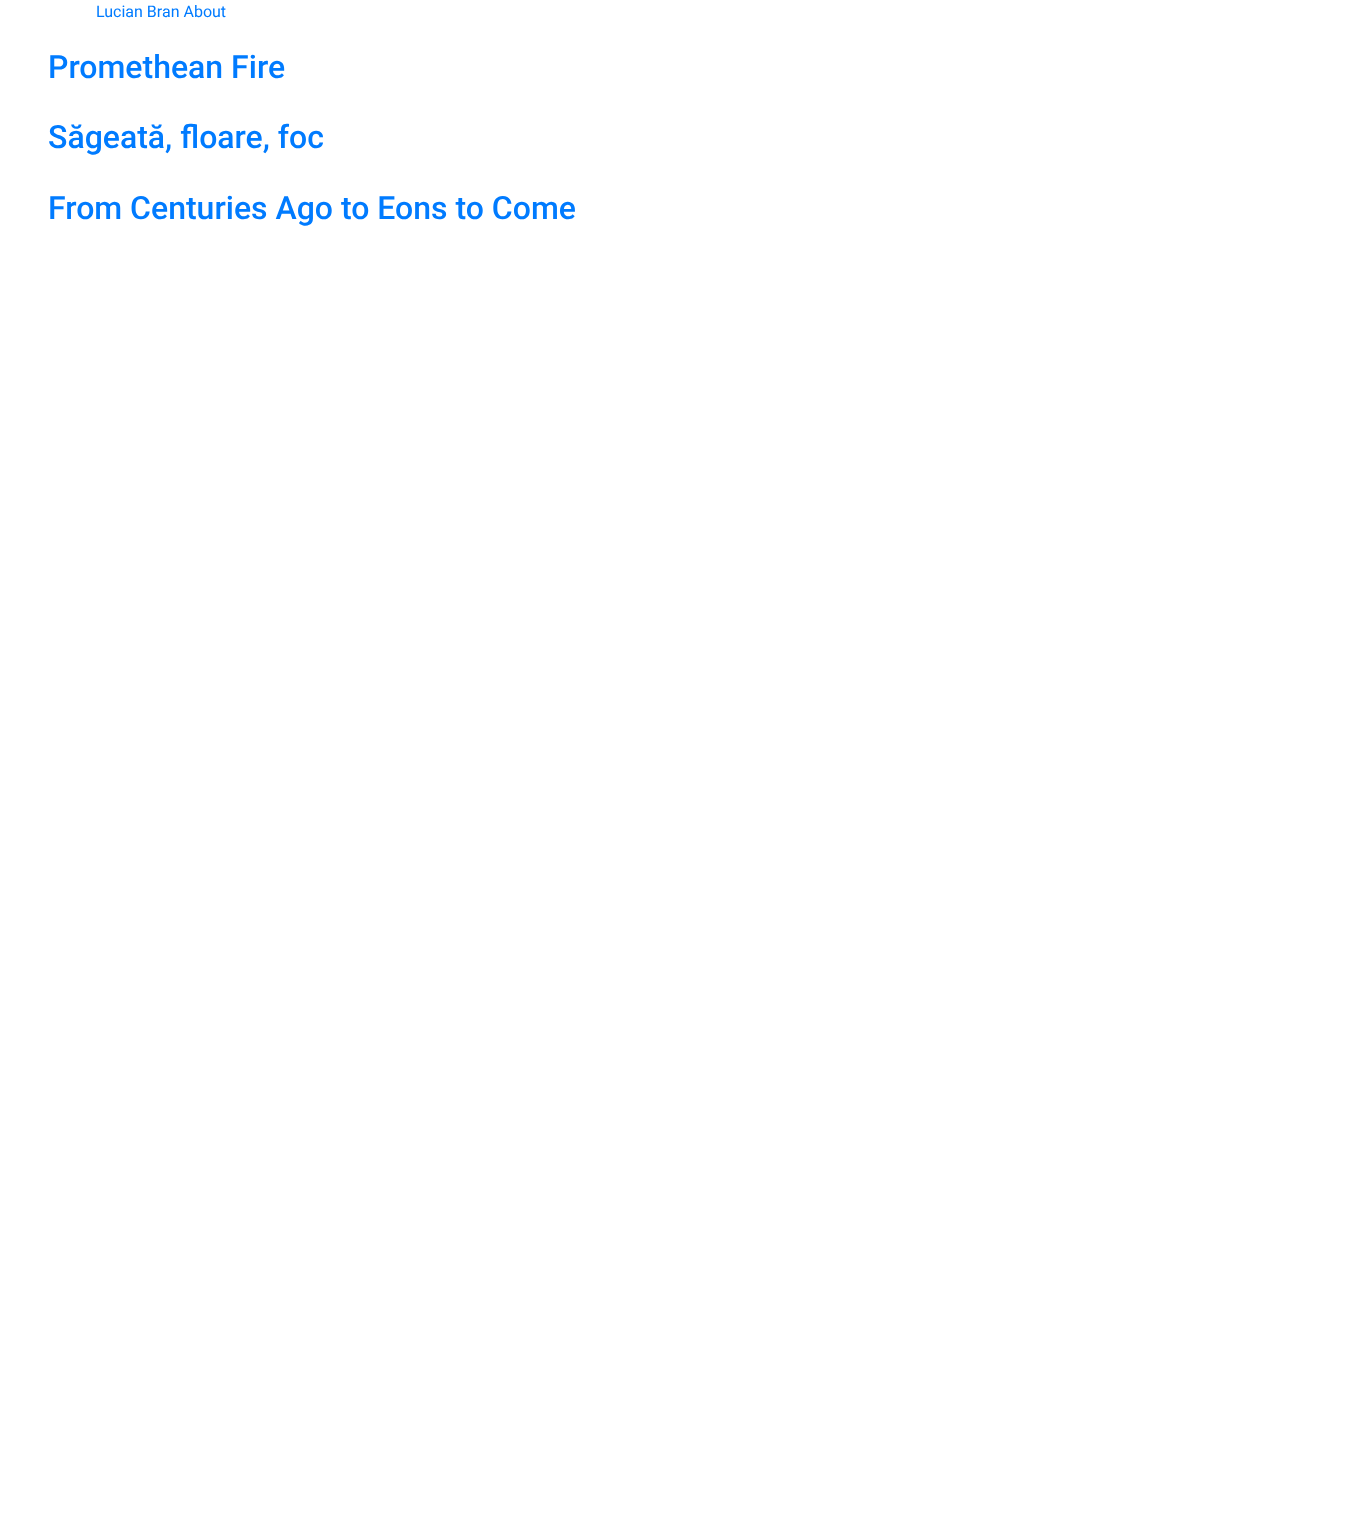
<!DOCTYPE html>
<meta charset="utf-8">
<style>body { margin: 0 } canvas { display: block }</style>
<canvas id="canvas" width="1360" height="1537"></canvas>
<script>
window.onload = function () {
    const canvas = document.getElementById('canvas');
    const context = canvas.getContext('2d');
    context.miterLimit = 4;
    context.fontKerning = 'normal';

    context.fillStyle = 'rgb(255, 255, 255)';
    context.fillRect(0, 0, 1360, 1537);
    context.font = '16px Roboto';
    context.fillStyle = 'rgb(0, 123, 255)';
    context.fillText('Lucian Bran About', 96, 17);
    context.font = '500 32px Roboto';
    context.fillText('Promethean Fire', 48, 78);
    context.fillText('Săgeată, floare, foc', 48, 148);
    context.fillText('From Centuries Ago to Eons to Come', 48, 219);
};
</script>
